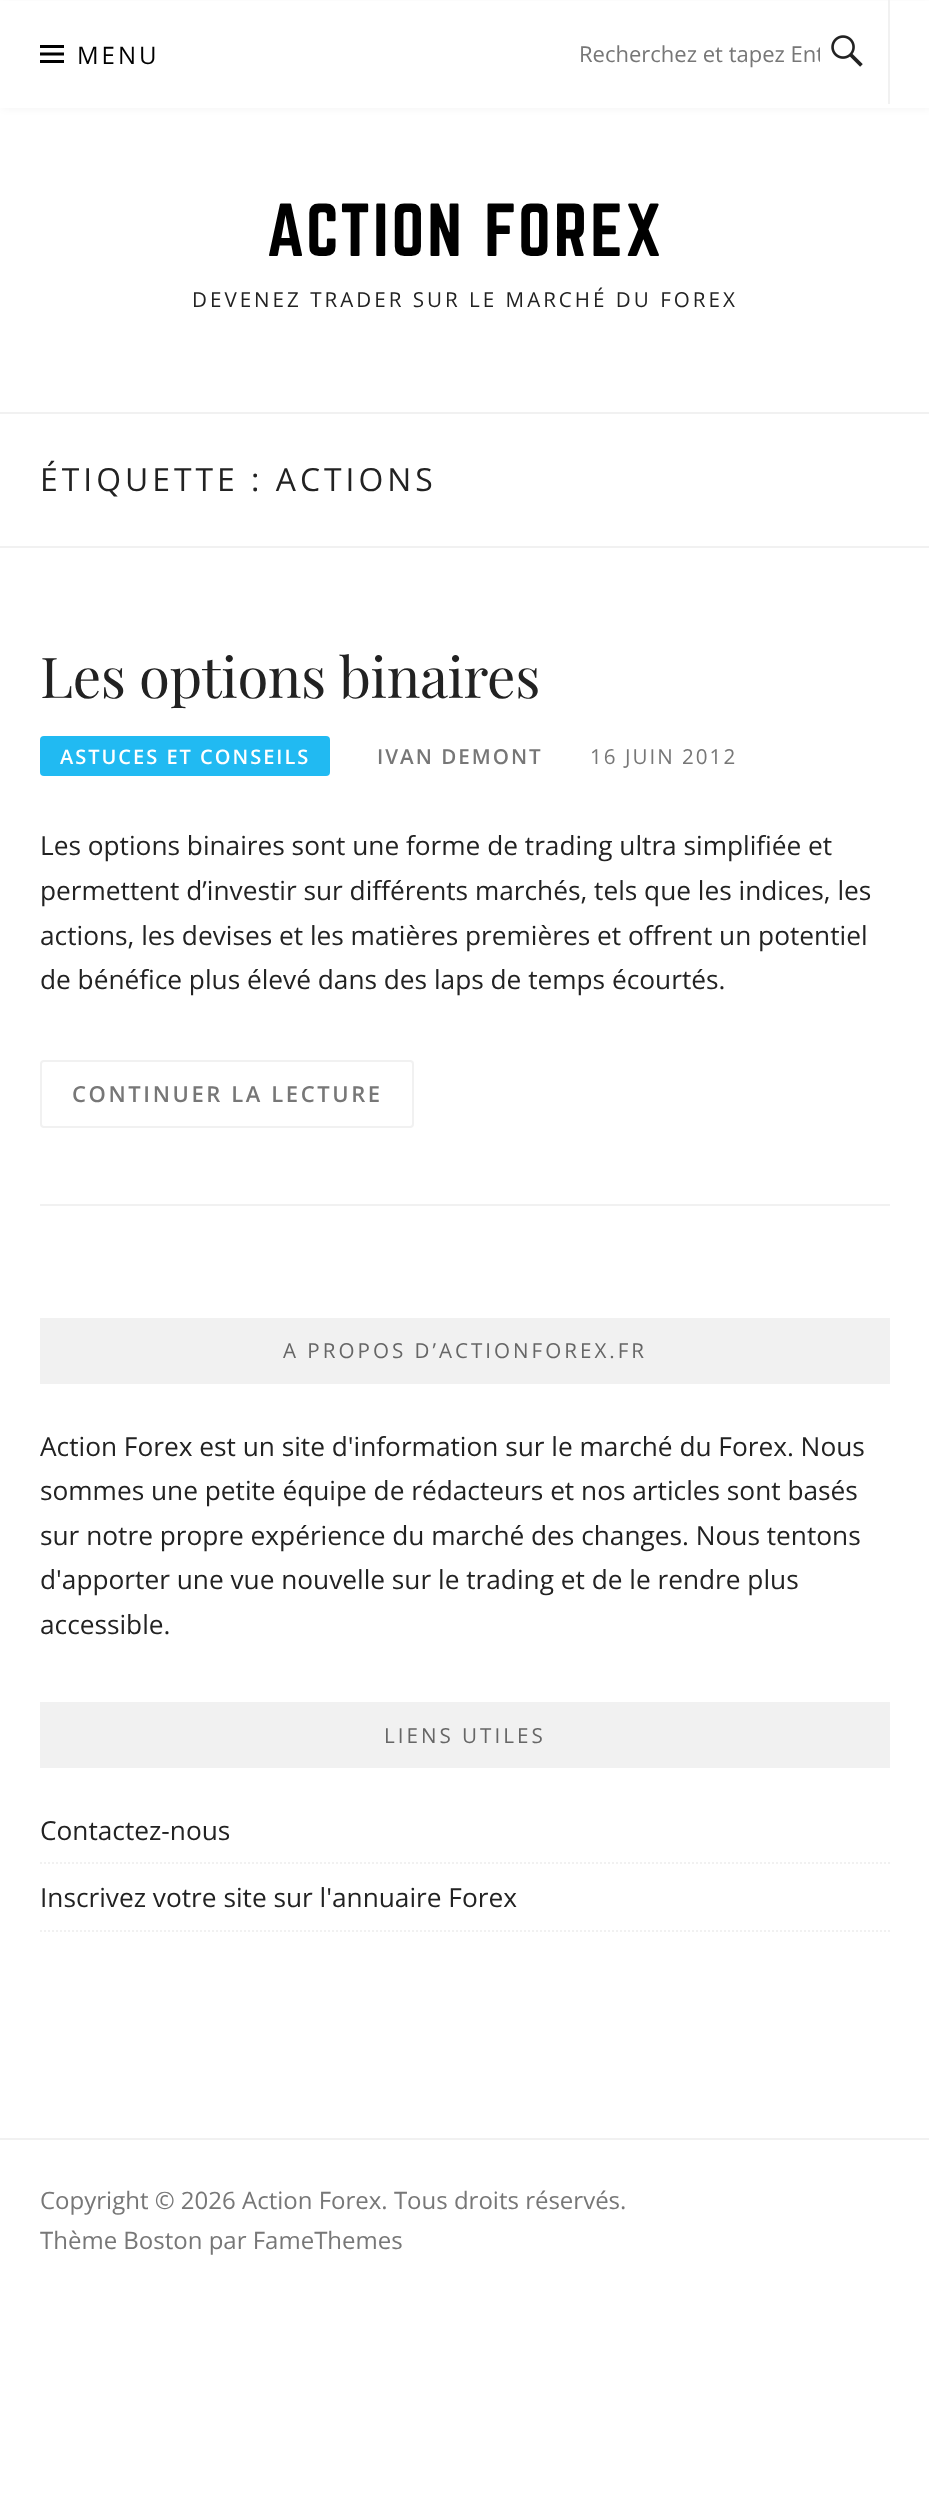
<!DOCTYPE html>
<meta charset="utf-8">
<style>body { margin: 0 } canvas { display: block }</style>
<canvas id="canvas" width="929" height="2505"></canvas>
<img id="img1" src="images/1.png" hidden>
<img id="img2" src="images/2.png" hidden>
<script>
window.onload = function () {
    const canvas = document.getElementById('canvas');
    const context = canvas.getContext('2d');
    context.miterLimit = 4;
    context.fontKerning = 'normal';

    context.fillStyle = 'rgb(255, 255, 255)';
    context.fillRect(0, 0, 929, 2505);
    context.fillStyle = 'rgba(0, 0, 0, 0.05)';
    context.filter = 'blur(4px)';
    context.beginPath();
    context.rect(2, 4, 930, 104);
    context.fill();
    context.filter = 'none';
    context.fillStyle = 'rgb(255, 255, 255)';
    context.fillRect(0, 1, 929, 107);
    context.drawImage(document.getElementById('img1'), 40, 45, 24, 18);
    context.fillStyle = 'rgb(241, 241, 241)';
    context.fillRect(888, 0, 2, 104);
    context.drawImage(document.getElementById('img2'), 831, 35, 32, 32);
    context.fillRect(0, 412, 929, 2);
    context.fillRect(0, 546, 929, 2);
    context.fillRect(40, 1204, 850, 2);
    context.fillStyle = 'rgb(33, 186, 242)';
    context.beginPath();
    context.roundRect(40, 736, 290, 40, 4);
    context.fill();
    context.beginPath();
    context.roundRect(41, 1061, 372, 66, 3);
    context.strokeStyle = 'rgb(241, 241, 241)';
    context.lineWidth = 2;
    context.stroke();
    context.fillStyle = 'rgb(241, 241, 241)';
    context.fillRect(40, 1318, 850, 66);
    context.fillRect(40, 1702, 850, 66);
    context.beginPath();
    context.moveTo(40, 1863);
    context.lineTo(890, 1863);
    context.setLineDash([2, 2]);
    context.stroke();
    context.beginPath();
    context.moveTo(40, 1931);
    context.lineTo(890, 1931);
    context.stroke();
    context.fillRect(0, 2138, 929, 2);
    context.letterSpacing = '3px';
    context.font = '24px Open Sans';
    context.fillStyle = 'rgb(0, 0, 0)';
    context.fillText('MENU', 77, 64);
    context.save();
    context.beginPath();
    context.rect(580, 38, 240, 30);
    context.clip();
    context.letterSpacing = '0px';
    context.font = '22px Open Sans';
    context.fillStyle = 'rgb(119, 119, 119)';
    context.fillText('Recherchez et tapez Ent', 579, 62);
    context.restore();
    context.font = '65.5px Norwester';
    context.fillText('ACTION FOREX', 266, 256);
    context.font = '20.6px Open Sans';
    context.fillStyle = 'rgb(34, 34, 34)';
    context.fillText('DEVENEZ TRADER SUR LE MARCHÉ DU FOREX', 192, 307);
    context.letterSpacing = '4px';
    context.font = '31.9px Open Sans';
    context.fillText('ÉTIQUETTE : ACTIONS', 40, 491);
    context.letterSpacing = '-0.4px';
    context.font = '56.25px Playfair Display';
    context.fillText('Les options binaires', 40, 698);
    context.letterSpacing = '2px';
    context.font = '600 20px Open Sans';
    context.fillStyle = 'rgb(255, 255, 255)';
    context.fillText('ASTUCES ET CONSEILS', 60, 764);
    context.font = '600 20.6px Open Sans';
    context.fillStyle = 'rgb(119, 119, 119)';
    context.fillText('IVAN DEMONT', 377, 764);
    context.font = '20.6px Open Sans';
    context.fillText('16 JUIN 2012', 590, 764);
    context.letterSpacing = '0px';
    context.font = '26.25px Open Sans';
    context.fillStyle = 'rgb(34, 34, 34)';
    context.fillText('Les options binaires sont une forme de trading ultra simplifiée et', 40, 855);
    context.fillText('permettent d’investir sur différents marchés, tels que les indices, les', 40, 900);
    context.fillText('actions, les devises et les matières premières et offrent un potentiel', 40, 945);
    context.fillText('de bénéfice plus élevé dans des laps de temps écourtés.', 40, 989);
    context.letterSpacing = '2.6px';
    context.font = '600 22px Open Sans';
    context.fillStyle = 'rgb(119, 119, 119)';
    context.fillText('CONTINUER LA LECTURE', 72, 1102);
    context.letterSpacing = '3px';
    context.font = '20.6px Open Sans';
    context.fillStyle = 'rgb(102, 102, 102)';
    context.fillText('A PROPOS D’ACTIONFOREX.FR', 283, 1358);
    context.letterSpacing = '0px';
    context.font = '26.25px Open Sans';
    context.fillStyle = 'rgb(34, 34, 34)';
    context.fillText('Action Forex est un site d\'information sur le marché du Forex. Nous', 40, 1456);
    context.fillText('sommes une petite équipe de rédacteurs et nos articles sont basés', 40, 1500);
    context.fillText('sur notre propre expérience du marché des changes. Nous tentons', 40, 1545);
    context.fillText('d\'apporter une vue nouvelle sur le trading et de le rendre plus', 40, 1589);
    context.fillText('accessible.', 40, 1634);
    context.letterSpacing = '3px';
    context.font = '20.6px Open Sans';
    context.fillStyle = 'rgb(102, 102, 102)';
    context.fillText('LIENS UTILES', 384, 1743);
    context.letterSpacing = '0px';
    context.font = '26.25px Open Sans';
    context.fillStyle = 'rgb(34, 34, 34)';
    context.fillText('Contactez-nous', 40, 1840);
    context.fillText('Inscrivez votre site sur l\'annuaire Forex', 40, 1907);
    context.font = '24px Open Sans';
    context.fillStyle = 'rgb(119, 119, 119)';
    context.fillText('Copyright © 2026 Action Forex. Tous droits réservés.', 40, 2209);
    context.fillText('Thème Boston par FameThemes', 40, 2249);
};
</script>
